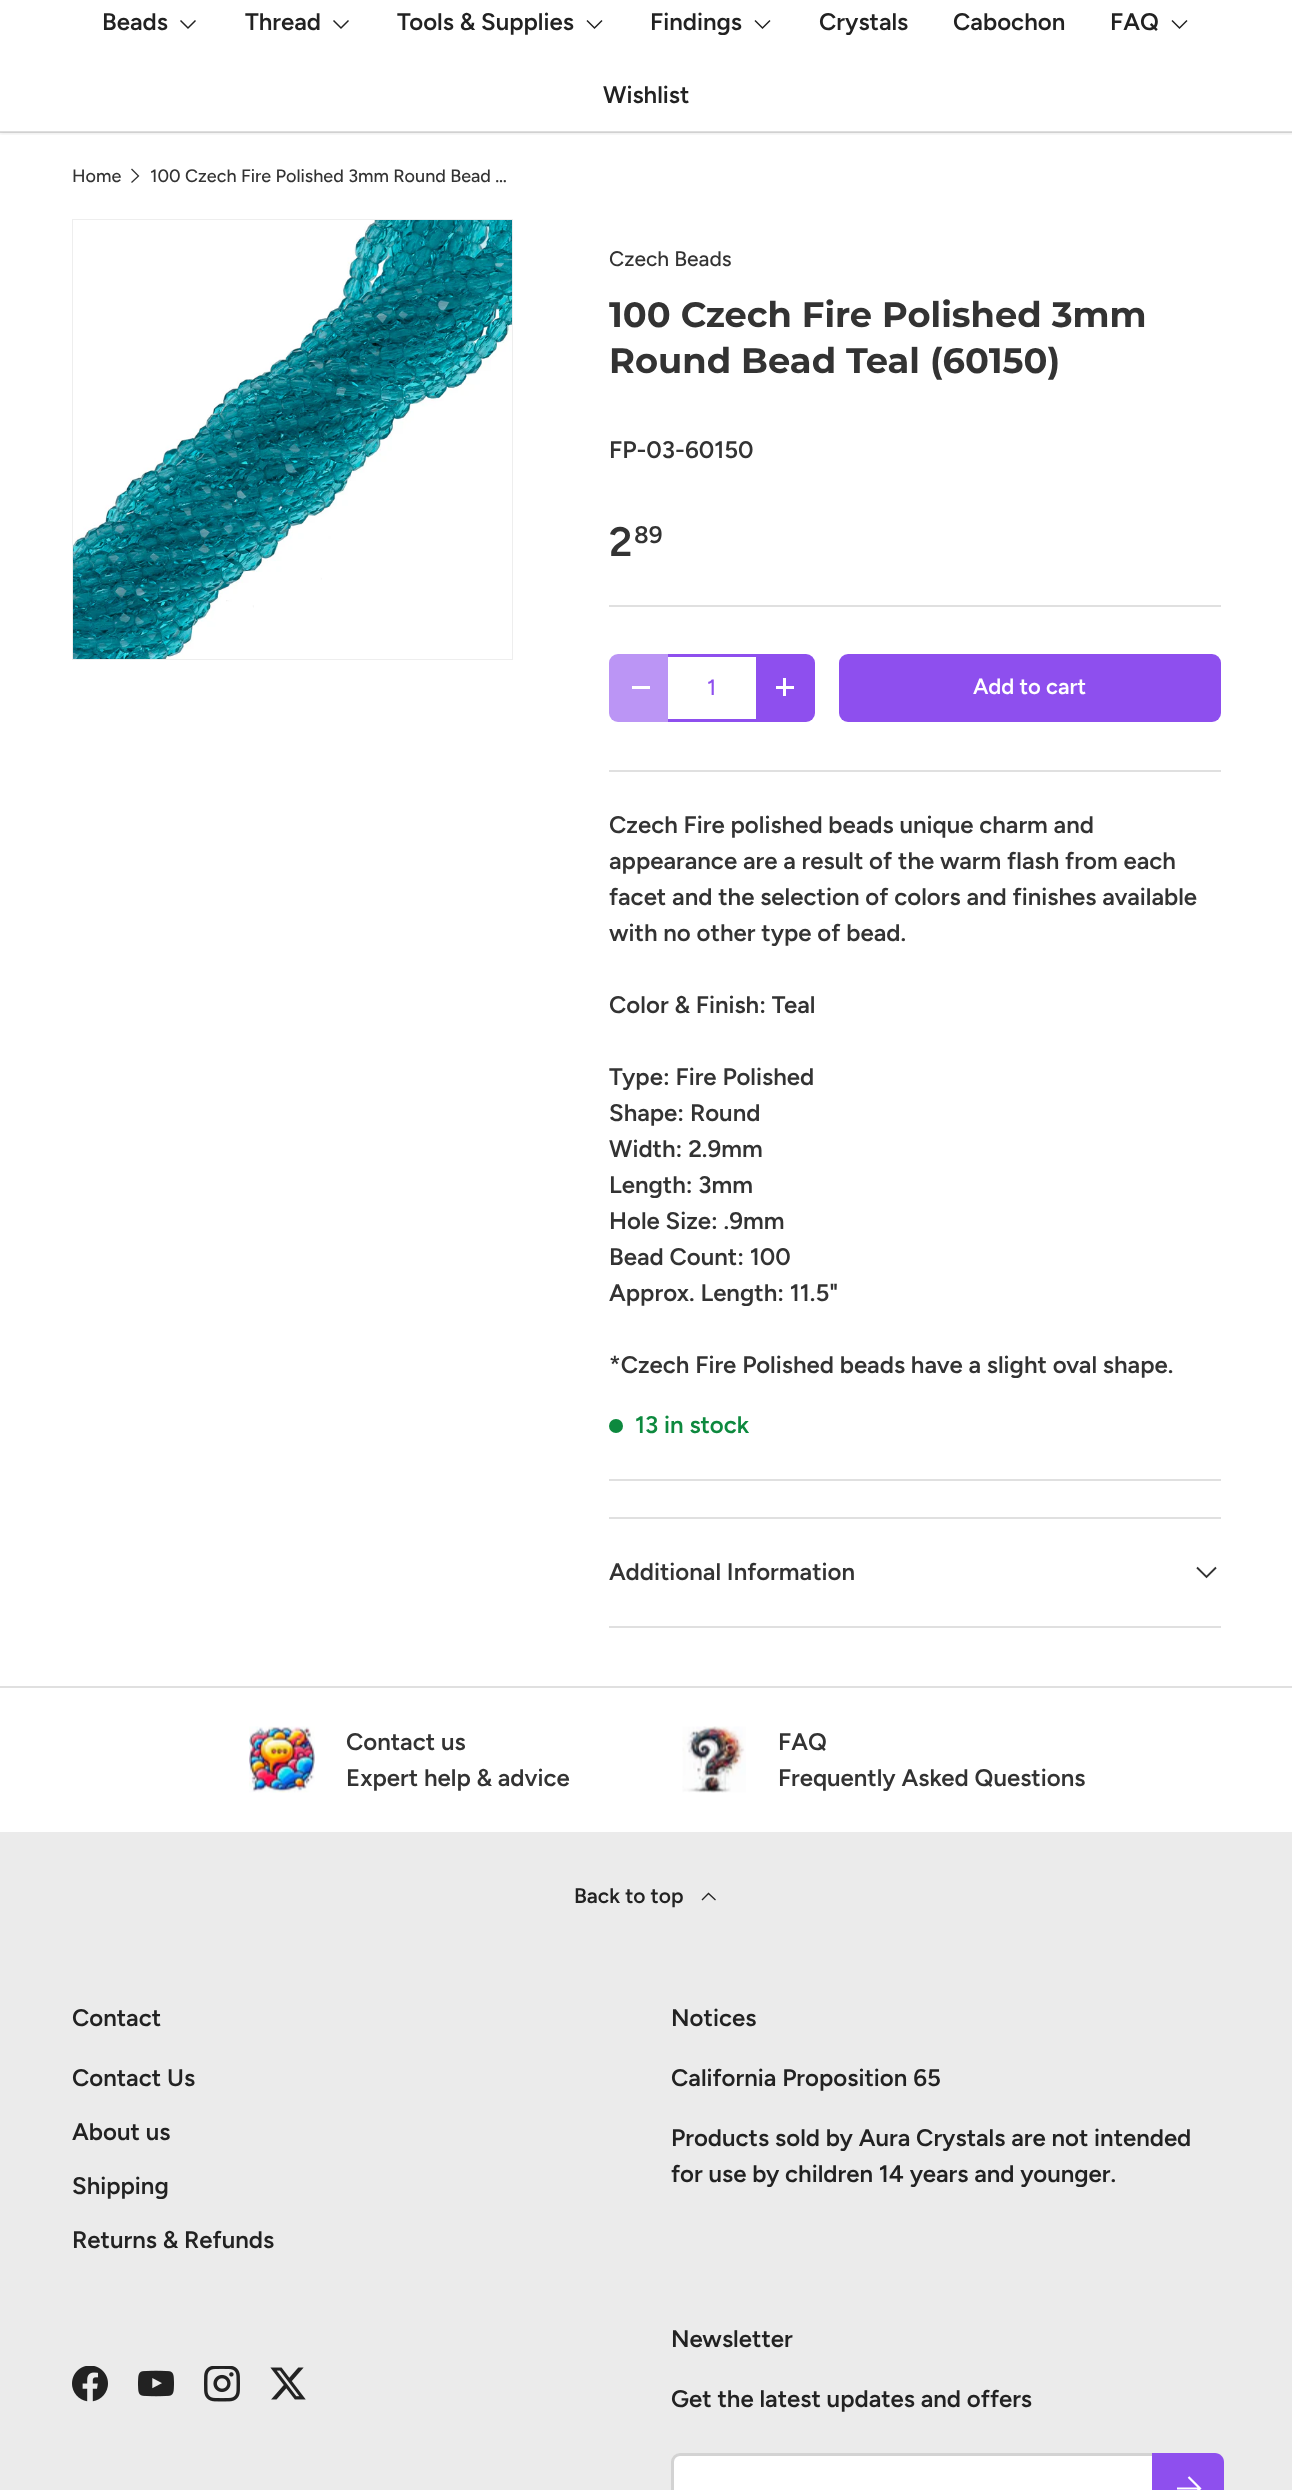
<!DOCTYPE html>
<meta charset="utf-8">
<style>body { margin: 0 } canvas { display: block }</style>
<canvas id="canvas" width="1292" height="2490"></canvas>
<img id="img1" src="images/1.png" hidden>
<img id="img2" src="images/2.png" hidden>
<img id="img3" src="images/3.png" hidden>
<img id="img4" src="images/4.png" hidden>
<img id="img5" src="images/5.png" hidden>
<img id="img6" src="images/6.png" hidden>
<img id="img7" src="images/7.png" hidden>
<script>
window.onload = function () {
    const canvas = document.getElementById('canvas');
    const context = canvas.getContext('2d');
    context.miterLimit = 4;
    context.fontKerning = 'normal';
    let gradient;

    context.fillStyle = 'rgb(255, 255, 255)';
    context.fillRect(0, 0, 1292, 2490);
    context.save();
    context.beginPath();
    context.rect(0, 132, 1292, 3);
    context.clip();
    context.fillStyle = 'rgba(0, 0, 0, 0.08)';
    context.filter = 'blur(2px)';
    context.beginPath();
    context.rect(-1, -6, 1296, 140);
    context.fill();
    context.filter = 'none';
    context.restore();
    context.beginPath();
    context.moveTo(195.5, 20.5);
    context.lineTo(188, 28);
    context.lineTo(180.5, 20.5);
    context.strokeStyle = 'rgb(34, 34, 34)';
    context.lineWidth = 1.5;
    context.stroke();
    context.beginPath();
    context.moveTo(348.5, 20.5);
    context.lineTo(341, 28);
    context.lineTo(333.5, 20.5);
    context.stroke();
    context.beginPath();
    context.moveTo(602, 20.5);
    context.lineTo(594.5, 28);
    context.lineTo(587, 20.5);
    context.stroke();
    context.beginPath();
    context.moveTo(770, 20.5);
    context.lineTo(762.5, 28);
    context.lineTo(755, 20.5);
    context.stroke();
    context.beginPath();
    context.moveTo(1187, 20.5);
    context.lineTo(1179.5, 28);
    context.lineTo(1172, 20.5);
    context.stroke();
    context.fillStyle = 'rgba(34, 34, 34, 0.15)';
    context.fillRect(0, 131, 1292, 2);
    context.beginPath();
    context.moveTo(131.5, 169);
    context.lineTo(138.5, 176);
    context.lineTo(131.5, 182.5);
    context.strokeStyle = 'rgb(51, 51, 51)';
    context.lineWidth = 1.3;
    context.stroke();
    context.strokeStyle = 'rgb(238, 238, 238)';
    context.lineWidth = 2;
    context.strokeRect(73, 220, 439, 439);
    context.drawImage(document.getElementById('img1'), 73, 220, 439, 439);
    context.fillStyle = 'rgb(224, 224, 224)';
    context.fillRect(609, 605, 612, 2);
    context.fillStyle = 'rgb(187, 149, 245)';
    context.beginPath();
    context.roundRect(609, 654, 59, 68, [9, 0, 0, 9]);
    context.fill();
    context.fillStyle = 'rgb(255, 255, 255)';
    context.fillRect(632, 686, 18, 3);
    context.fillStyle = 'rgb(142, 79, 238)';
    context.fillRect(668, 719, 88, 3);
    context.fillRect(668, 654, 88, 3);
    context.beginPath();
    context.roundRect(756, 654, 59, 68, [0, 9, 9, 0]);
    context.fill();
    context.fillStyle = 'rgb(255, 255, 255)';
    context.fillRect(776, 686, 18, 3);
    context.fillRect(783, 678, 3, 18);
    gradient = context.createLinearGradient(99, 551, 1195, 824);
    gradient.addColorStop(0.6, 'rgb(168, 119, 242)');
    gradient.addColorStop(0.6, 'rgb(142, 79, 238)');
    gradient.addColorStop(1, 'rgb(142, 79, 238)');
    context.fillStyle = gradient;
    context.beginPath();
    context.roundRect(839, 654, 382, 68, 9);
    context.fill();
    context.fillStyle = 'rgb(224, 224, 224)';
    context.fillRect(609, 770, 612, 2);
    context.fillStyle = 'rgb(13, 137, 62)';
    context.beginPath();
    context.arc(616, 1426, 7, 0, 2 * Math.PI);
    context.fill();
    context.fillStyle = 'rgb(224, 224, 224)';
    context.fillRect(609, 1479, 612, 2);
    context.fillRect(609, 1517, 612, 2);
    context.fillRect(609, 1626, 612, 2);
    context.beginPath();
    context.moveTo(1216, 1567.5);
    context.lineTo(1206.5, 1577);
    context.lineTo(1197, 1567.5);
    context.strokeStyle = 'rgb(51, 51, 51)';
    context.lineWidth = 1.9;
    context.stroke();
    context.fillRect(0, 1686, 1292, 2);
    context.drawImage(document.getElementById('img2'), 249, 1726, 66, 67);
    context.drawImage(document.getElementById('img3'), 682, 1726, 64, 67);
    context.fillStyle = 'rgb(235, 235, 235)';
    context.fillRect(0, 1832, 1292, 658);
    context.beginPath();
    context.moveTo(702, 1900);
    context.lineTo(708.5, 1893.5);
    context.lineTo(715.5, 1900);
    context.strokeStyle = 'rgb(34, 34, 34)';
    context.lineWidth = 1.3;
    context.stroke();
    context.drawImage(document.getElementById('img4'), 72, 2366, 36, 36);
    context.drawImage(document.getElementById('img5'), 138, 2370, 36, 27);
    context.drawImage(document.getElementById('img6'), 204, 2366, 36, 36);
    context.drawImage(document.getElementById('img7'), 270, 2367, 36, 33);
    context.fillStyle = 'rgb(255, 255, 255)';
    context.beginPath();
    context.roundRect(671, 2453, 550, 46, 9);
    context.fill();
    context.beginPath();
    context.roundRect(672.5, 2454.5, 547, 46, 7.5);
    context.strokeStyle = 'rgba(34, 34, 34, 0.2)';
    context.lineWidth = 3;
    context.stroke();
    gradient = context.createLinearGradient(1006, 2461, 1226, 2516);
    gradient.addColorStop(0.6, 'rgb(168, 119, 242)');
    gradient.addColorStop(0.6, 'rgb(142, 79, 238)');
    gradient.addColorStop(1, 'rgb(142, 79, 238)');
    context.fillStyle = gradient;
    context.beginPath();
    context.moveTo(1152, 2453);
    context.lineTo(1215, 2453);
    context.bezierCurveTo(1220, 2453, 1224, 2457, 1224, 2462);
    context.lineTo(1224, 2490);
    context.bezierCurveTo(1224, 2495, 1220, 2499, 1215, 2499);
    context.lineTo(1152, 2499);
    context.closePath();
    context.fill();
    context.beginPath();
    context.moveTo(1177, 2488.5);
    context.lineTo(1199, 2488.5);
    context.moveTo(1188.5, 2477);
    context.lineTo(1200, 2488.5);
    context.lineTo(1188.5, 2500);
    context.strokeStyle = 'rgb(255, 255, 255)';
    context.lineWidth = 2.2;
    context.stroke();
    context.font = '600 24px Figtree';
    context.fillStyle = 'rgb(34, 34, 34)';
    context.fillText('Beads', 102, 30);
    context.fillText('Thread', 245, 30);
    context.fillText('Tools & Supplies', 397, 30);
    context.fillText('Findings', 650, 30);
    context.fillText('Crystals', 819, 30);
    context.fillText('Cabochon', 953, 30);
    context.fillText('FAQ', 1110, 30);
    context.fillText('Wishlist', 603, 103);
    context.font = '500 18px Figtree';
    context.fillStyle = 'rgb(51, 51, 51)';
    context.fillText('Home', 72, 182);
    context.fillText('100 Czech Fire Polished 3mm Round Bead …', 150, 182);
    context.font = '500 21px Figtree';
    context.fillText('Czech Beads', 609, 266);
    context.font = 'bold 35.25px Montserrat';
    context.fillText('100 Czech Fire Polished 3mm', 609, 327);
    context.fillText('Round Bead Teal (60150)', 609, 373);
    context.font = '600 24px Figtree';
    context.fillText('FP-03-60150', 609, 458);
    context.font = '600 41px Figtree';
    context.fillText('2', 609, 556);
    context.font = '600 24px Figtree';
    context.fillText('89', 634, 543);
    context.font = '500 22px Figtree';
    context.fillStyle = 'rgb(142, 79, 238)';
    context.fillText('1', 707, 695);
    context.font = '600 22px Figtree';
    context.fillStyle = 'rgb(255, 255, 255)';
    context.fillText('Add to cart', 973, 694);
    context.font = '600 24px Figtree';
    context.fillStyle = 'rgb(51, 51, 51)';
    context.fillText('Czech Fire polished beads unique charm and', 609, 833);
    context.fillText('appearance are a result of the warm flash from each', 609, 869);
    context.fillText('facet and the selection of colors and finishes available', 609, 905);
    context.fillText('with no other type of bead.', 609, 941);
    context.fillText('Color & Finish: Teal', 609, 1013);
    context.fillText('Type: Fire Polished', 609, 1085);
    context.fillText('Shape: Round', 609, 1121);
    context.fillText('Width: 2.9mm', 609, 1157);
    context.fillText('Length: 3mm', 609, 1193);
    context.fillText('Hole Size: .9mm', 609, 1229);
    context.fillText('Bead Count: 100', 609, 1265);
    context.fillText('Approx. Length: 11.5"', 609, 1301);
    context.fillText('*Czech Fire Polished beads have a slight oval shape.', 609, 1373);
    context.fillStyle = 'rgb(13, 137, 62)';
    context.fillText('13 in stock', 635, 1433);
    context.fillStyle = 'rgb(51, 51, 51)';
    context.fillText('Additional Information', 609, 1580);
    context.fillText('Contact us', 346, 1750);
    context.fillText('Expert help & advice', 346, 1786);
    context.fillText('FAQ', 778, 1750);
    context.fillText('Frequently Asked Questions', 778, 1786);
    context.font = '600 21px Figtree';
    context.fillStyle = 'rgb(34, 34, 34)';
    context.fillText('Back to top', 574, 1903);
    context.font = '600 24px Figtree';
    context.fillText('Contact', 72, 2026);
    context.fillText('Contact Us', 72, 2086);
    context.fillText('About us', 72, 2140);
    context.fillText('Shipping', 72, 2194);
    context.fillText('Returns & Refunds', 72, 2248);
    context.fillText('Notices', 671, 2026);
    context.fillText('California Proposition 65', 671, 2086);
    context.fillText('Products sold by Aura Crystals are not intended', 671, 2146);
    context.fillText('for use by children 14 years and younger.', 671, 2182);
    context.fillText('Newsletter', 671, 2347);
    context.fillText('Get the latest updates and offers', 671, 2407);
};
</script>
